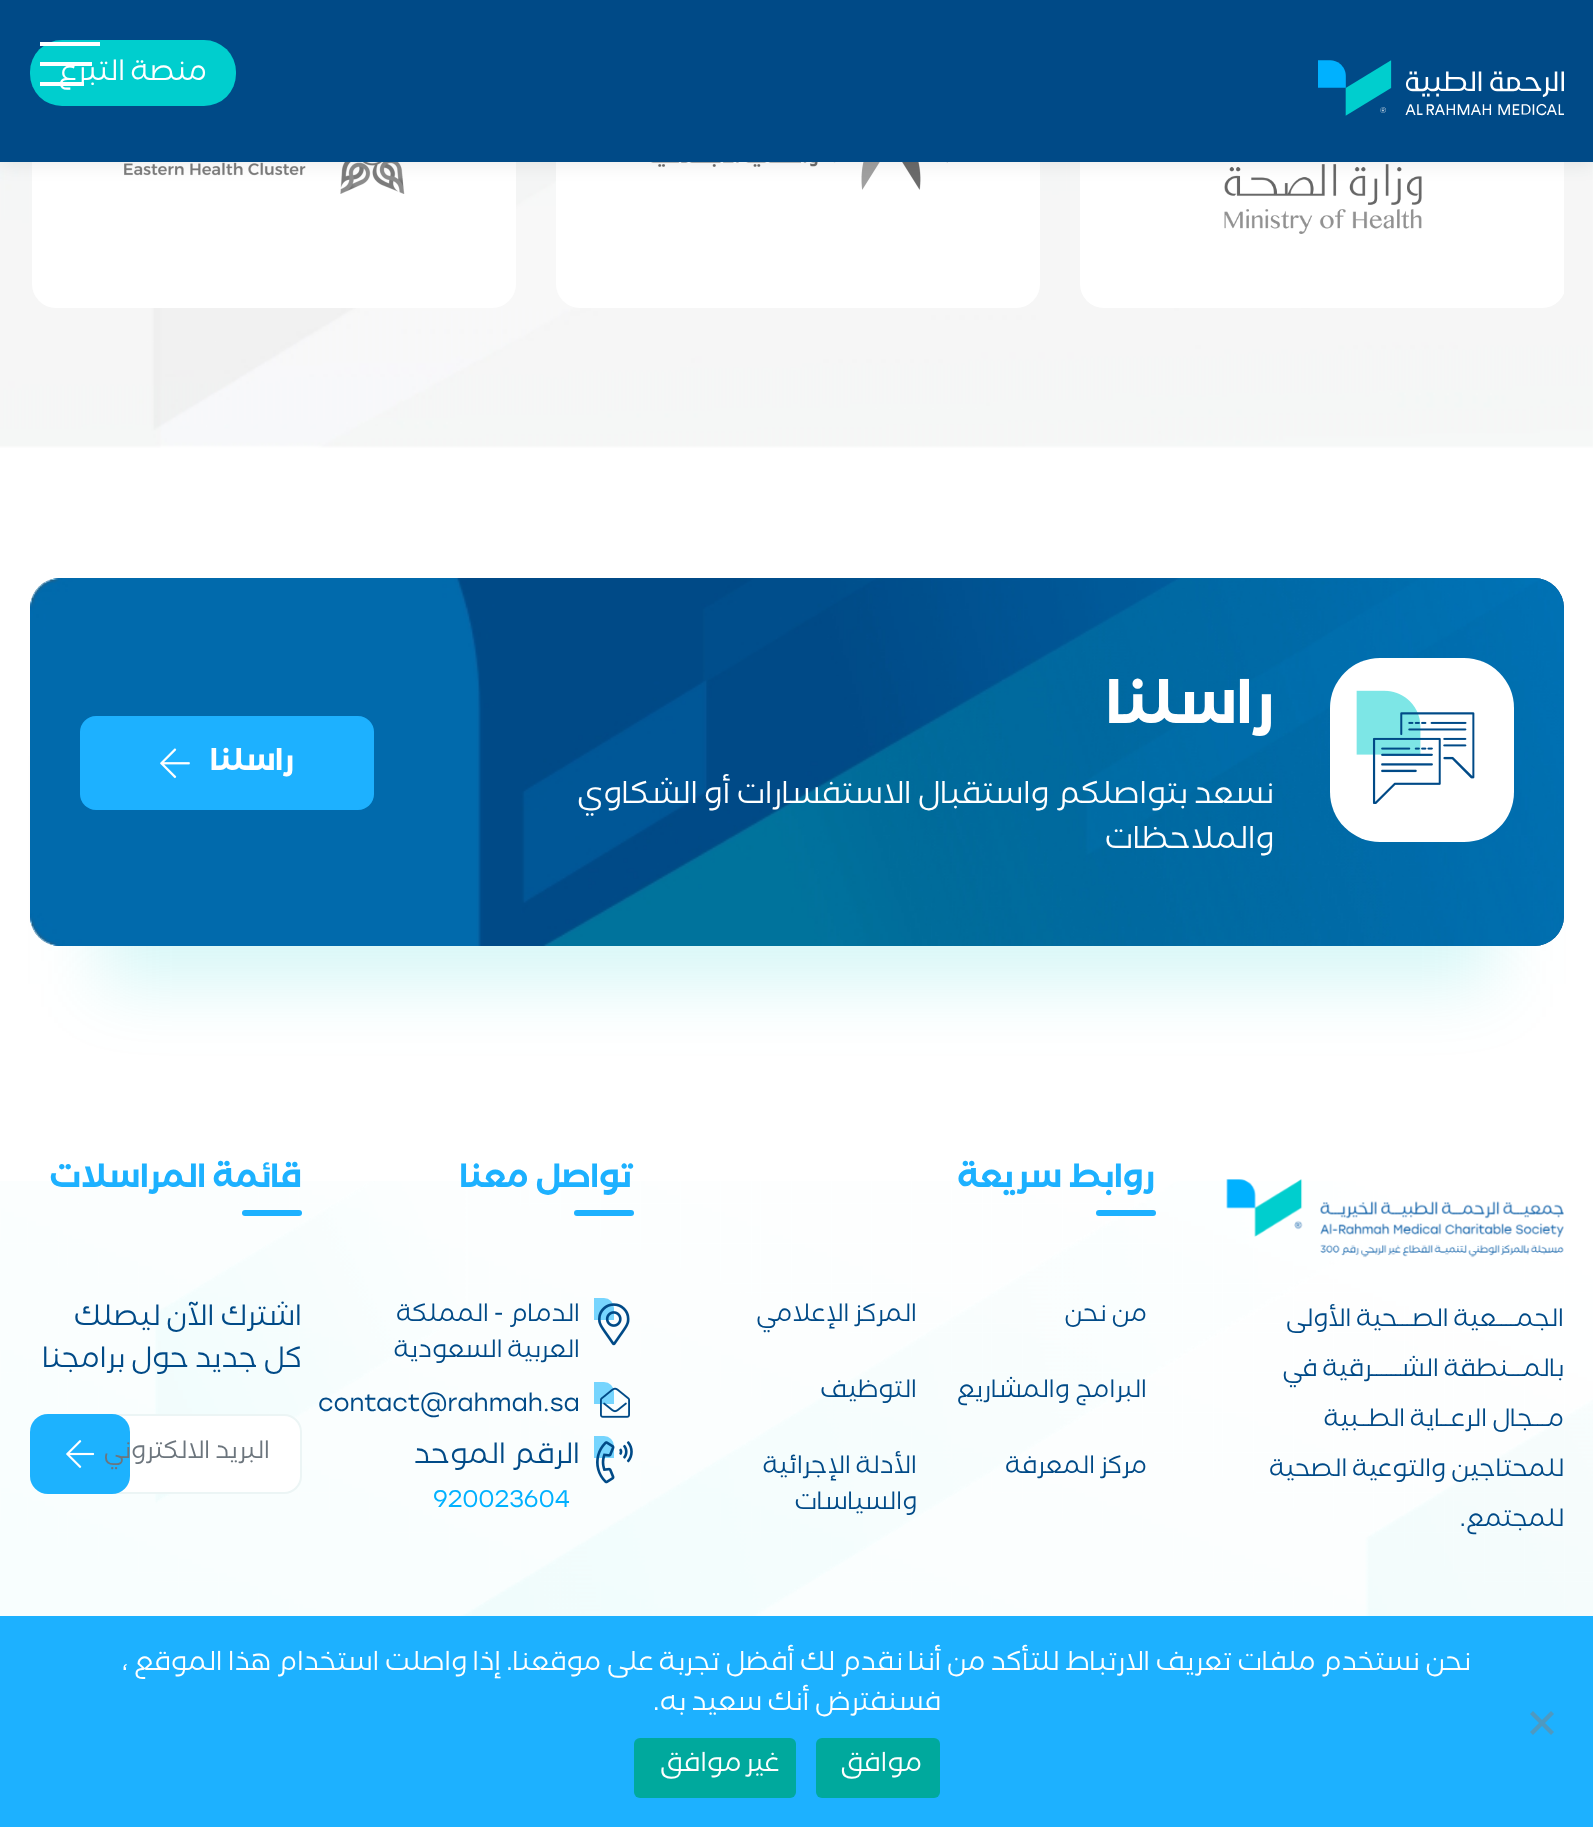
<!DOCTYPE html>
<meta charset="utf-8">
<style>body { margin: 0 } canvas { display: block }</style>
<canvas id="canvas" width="1593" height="1827"></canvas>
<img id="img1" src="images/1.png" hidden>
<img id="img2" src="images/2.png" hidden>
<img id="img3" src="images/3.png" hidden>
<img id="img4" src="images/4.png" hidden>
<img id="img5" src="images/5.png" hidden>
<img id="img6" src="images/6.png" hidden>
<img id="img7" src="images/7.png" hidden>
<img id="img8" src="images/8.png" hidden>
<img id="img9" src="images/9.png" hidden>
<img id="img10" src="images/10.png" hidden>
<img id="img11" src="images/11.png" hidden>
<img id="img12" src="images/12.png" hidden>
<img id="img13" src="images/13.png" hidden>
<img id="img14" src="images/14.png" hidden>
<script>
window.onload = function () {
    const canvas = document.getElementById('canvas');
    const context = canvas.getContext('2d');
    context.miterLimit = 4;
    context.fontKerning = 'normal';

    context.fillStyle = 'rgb(255, 255, 255)';
    context.fillRect(0, 0, 1593, 1827);
    context.drawImage(document.getElementById('img1'), 0, 162, 1593, 286);
    context.save();
    context.beginPath();
    context.rect(30, 0, 1534, 308);
    context.clip();
    context.beginPath();
    context.roundRect(1080, -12, 486, 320, 24);
    context.fill();
    context.restore();
    context.drawImage(document.getElementById('img2'), 1224, 164, 198, 70);
    context.beginPath();
    context.roundRect(556, -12, 484, 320, 24);
    context.fill();
    context.drawImage(document.getElementById('img3'), 651, 162, 297, 28);
    context.beginPath();
    context.roundRect(32, -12, 484, 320, 24);
    context.fill();
    context.drawImage(document.getElementById('img4'), 124, 162, 281, 32);
    context.fillStyle = 'rgba(0, 0, 0, 0.1)';
    context.filter = 'blur(10px)';
    context.beginPath();
    context.rect(0, 0, 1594, 162);
    context.fill();
    context.filter = 'none';
    context.fillStyle = 'rgb(0, 74, 135)';
    context.fillRect(0, 0, 1593, 162);
    context.fillStyle = 'rgb(0, 206, 206)';
    context.beginPath();
    context.roundRect(30, 40, 206, 66, 32);
    context.fill();
    context.fillStyle = 'rgb(255, 255, 255)';
    context.fillRect(40, 62, 52, 4);
    context.fillRect(40, 42, 60, 4);
    context.fillRect(40, 82, 44, 4);
    context.drawImage(document.getElementById('img5'), 1318, 60, 246, 56);
    context.fillStyle = 'rgba(0, 206, 206, 0.16)';
    context.filter = 'blur(35px)';
    context.beginPath();
    context.rect(100, 756, 1394, 228);
    context.fill();
    context.filter = 'none';
    context.fillStyle = 'rgb(0, 74, 135)';
    context.beginPath();
    context.roundRect(30, 578, 1534, 368, 30);
    context.fill();
    context.drawImage(document.getElementById('img6'), 30, 578, 1534, 368);
    context.fillStyle = 'rgb(255, 255, 255)';
    context.beginPath();
    context.roundRect(1330, 658, 184, 184, 50);
    context.fill();
    context.drawImage(document.getElementById('img7'), 1356, 690, 119, 114);
    context.fillStyle = 'rgb(29, 177, 255)';
    context.beginPath();
    context.roundRect(80, 716, 294, 94, 16);
    context.fill();
    context.drawImage(document.getElementById('img8'), 160, 748, 30, 31);
    context.fillStyle = 'rgb(0, 177, 255)';
    context.beginPath();
    context.roundRect(594, 1298, 20, 22, [0, 10, 0, 0]);
    context.fill();
    context.beginPath();
    context.roundRect(594, 1382, 20, 22, [0, 10, 0, 0]);
    context.fill();
    context.beginPath();
    context.roundRect(594, 1436, 20, 22, [0, 10, 0, 0]);
    context.fill();
    context.drawImage(document.getElementById('img9'), 0, 1181, 1593, 435);
    context.drawImage(document.getElementById('img10'), 1226, 1179, 338, 79);
    context.fillStyle = 'rgb(29, 177, 255)';
    context.beginPath();
    context.roundRect(1096, 1210, 60, 6, 3);
    context.fill();
    context.beginPath();
    context.roundRect(574, 1210, 60, 6, 3);
    context.fill();
    context.drawImage(document.getElementById('img11'), 598, 1303, 32, 43);
    context.drawImage(document.getElementById('img12'), 600, 1387, 30, 31);
    context.drawImage(document.getElementById('img13'), 596, 1441, 37, 43);
    context.beginPath();
    context.roundRect(242, 1210, 60, 6, 3);
    context.fill();
    context.fillStyle = 'rgb(255, 255, 255)';
    context.beginPath();
    context.roundRect(101, 1415, 200, 78, 17);
    context.fill();
    context.strokeStyle = 'rgb(236, 245, 245)';
    context.lineWidth = 2;
    context.stroke();
    context.fillStyle = 'rgb(29, 178, 254)';
    context.beginPath();
    context.roundRect(30, 1414, 100, 80, 18);
    context.fill();
    context.drawImage(document.getElementById('img14'), 66, 1440, 29, 28);
    context.fillStyle = 'rgb(29, 177, 255)';
    context.fillRect(0, 1616, 1593, 211);
    context.fillStyle = 'rgb(79, 153, 192)';
    context.beginPath();
    context.moveTo(1551, 1711);
    context.lineTo(1554, 1714);
    context.lineTo(1533, 1735);
    context.lineTo(1530, 1732);
    context.closePath();
    context.fill();
    context.beginPath();
    context.moveTo(1530, 1714);
    context.lineTo(1533, 1711);
    context.lineTo(1554, 1732);
    context.lineTo(1551, 1735);
    context.closePath();
    context.fill();
    context.fillStyle = 'rgb(0, 169, 157)';
    context.beginPath();
    context.roundRect(816, 1738, 124, 60, 6);
    context.fill();
    context.beginPath();
    context.roundRect(634, 1738, 162, 60, 6);
    context.fill();
    context.direction = 'rtl';
    context.font = '28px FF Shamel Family';
    context.fillStyle = 'rgb(255, 255, 255)';
    context.fillText('منصة التبرع', 207, 80);
    context.font = 'bold 60px FF Shamel Family';
    context.fillText('راسلنا', 1274, 723);
    context.font = '30px FF Shamel Family';
    context.fillText('نسعد بتواصلكم واستقبال الاستفسارات أو الشكاوي', 1274, 803);
    context.fillText('والملاحظات', 1274, 848);
    context.font = 'bold 30px FF Shamel Family';
    context.fillText('راسلنا', 294, 770);
    context.font = '24px FF Shamel Family';
    context.fillStyle = 'rgb(0, 74, 135)';
    context.fillText('الجمــــعية الصـــحية الأولى', 1564, 1326);
    context.fillText('بالمـــنطقة الشــــــرقية في', 1564, 1376);
    context.fillText('مـــجال الرعــاية الطــبية', 1564, 1426);
    context.fillText('للمحتاجين والتوعية الصحية', 1564, 1476);
    context.fillText('للمجتمع.', 1564, 1526);
    context.font = 'bold 32px FF Shamel Family';
    context.fillStyle = 'rgb(29, 177, 255)';
    context.fillText('روابط سريعة', 1155, 1187);
    context.font = '24px FF Shamel Family';
    context.fillStyle = 'rgb(0, 74, 135)';
    context.fillText('من نحن', 1147, 1321);
    context.fillText('المركز الإعلامي', 917, 1321);
    context.fillText('البرامج والمشاريع', 1147, 1397);
    context.fillText('التوظيف', 917, 1397);
    context.fillText('مركز المعرفة', 1147, 1473);
    context.fillText('الأدلة الإجرائية', 917, 1473);
    context.fillText('والسياسات', 917, 1509);
    context.font = 'bold 32px FF Shamel Family';
    context.fillStyle = 'rgb(29, 177, 255)';
    context.fillText('تواصل معنا', 634, 1187);
    context.font = '24px FF Shamel Family';
    context.fillStyle = 'rgb(0, 74, 135)';
    context.fillText('الدمام - المملكة', 580, 1321);
    context.fillText('العربية السعودية', 580, 1357);
    context.direction = 'ltr';
    context.font = '24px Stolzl';
    context.fillText('contact@rahmah.sa', 318, 1411);
    context.direction = 'rtl';
    context.font = '28px FF Shamel Family';
    context.fillText('الرقم الموحد', 580, 1463);
    context.direction = 'ltr';
    context.font = '24px Stolzl';
    context.fillStyle = 'rgb(0, 177, 255)';
    context.fillText('920023604', 433, 1507);
    context.direction = 'rtl';
    context.font = 'bold 32px FF Shamel Family';
    context.fillStyle = 'rgb(29, 177, 255)';
    context.fillText('قائمة المراسلات', 302, 1187);
    context.font = '28px FF Shamel Family';
    context.fillStyle = 'rgb(0, 74, 135)';
    context.fillText('اشترك الآن ليصلك', 302, 1325);
    context.fillText('كل جديد حول برامجنا', 302, 1367);
    context.font = '24px FF Shamel Family';
    context.fillStyle = 'rgb(108, 117, 125)';
    context.fillText('البريد الالكتروني', 270, 1458);
    context.font = '26px FF Shamel Family';
    context.fillStyle = 'rgb(255, 255, 255)';
    context.fillText('نحن نستخدم ملفات تعريف الارتباط للتأكد من أننا نقدم لك أفضل تجربة على موقعنا. إذا واصلت استخدام هذا الموقع ،', 1471, 1670);
    context.fillText('فسنفترض أنك سعيد به.', 941, 1710);
    context.letterSpacing = '0.5px';
    context.fillText('موافق', 922, 1771);
    context.wordSpacing = '-2px';
    context.fillText('غير موافق', 780, 1771);
};
</script>
